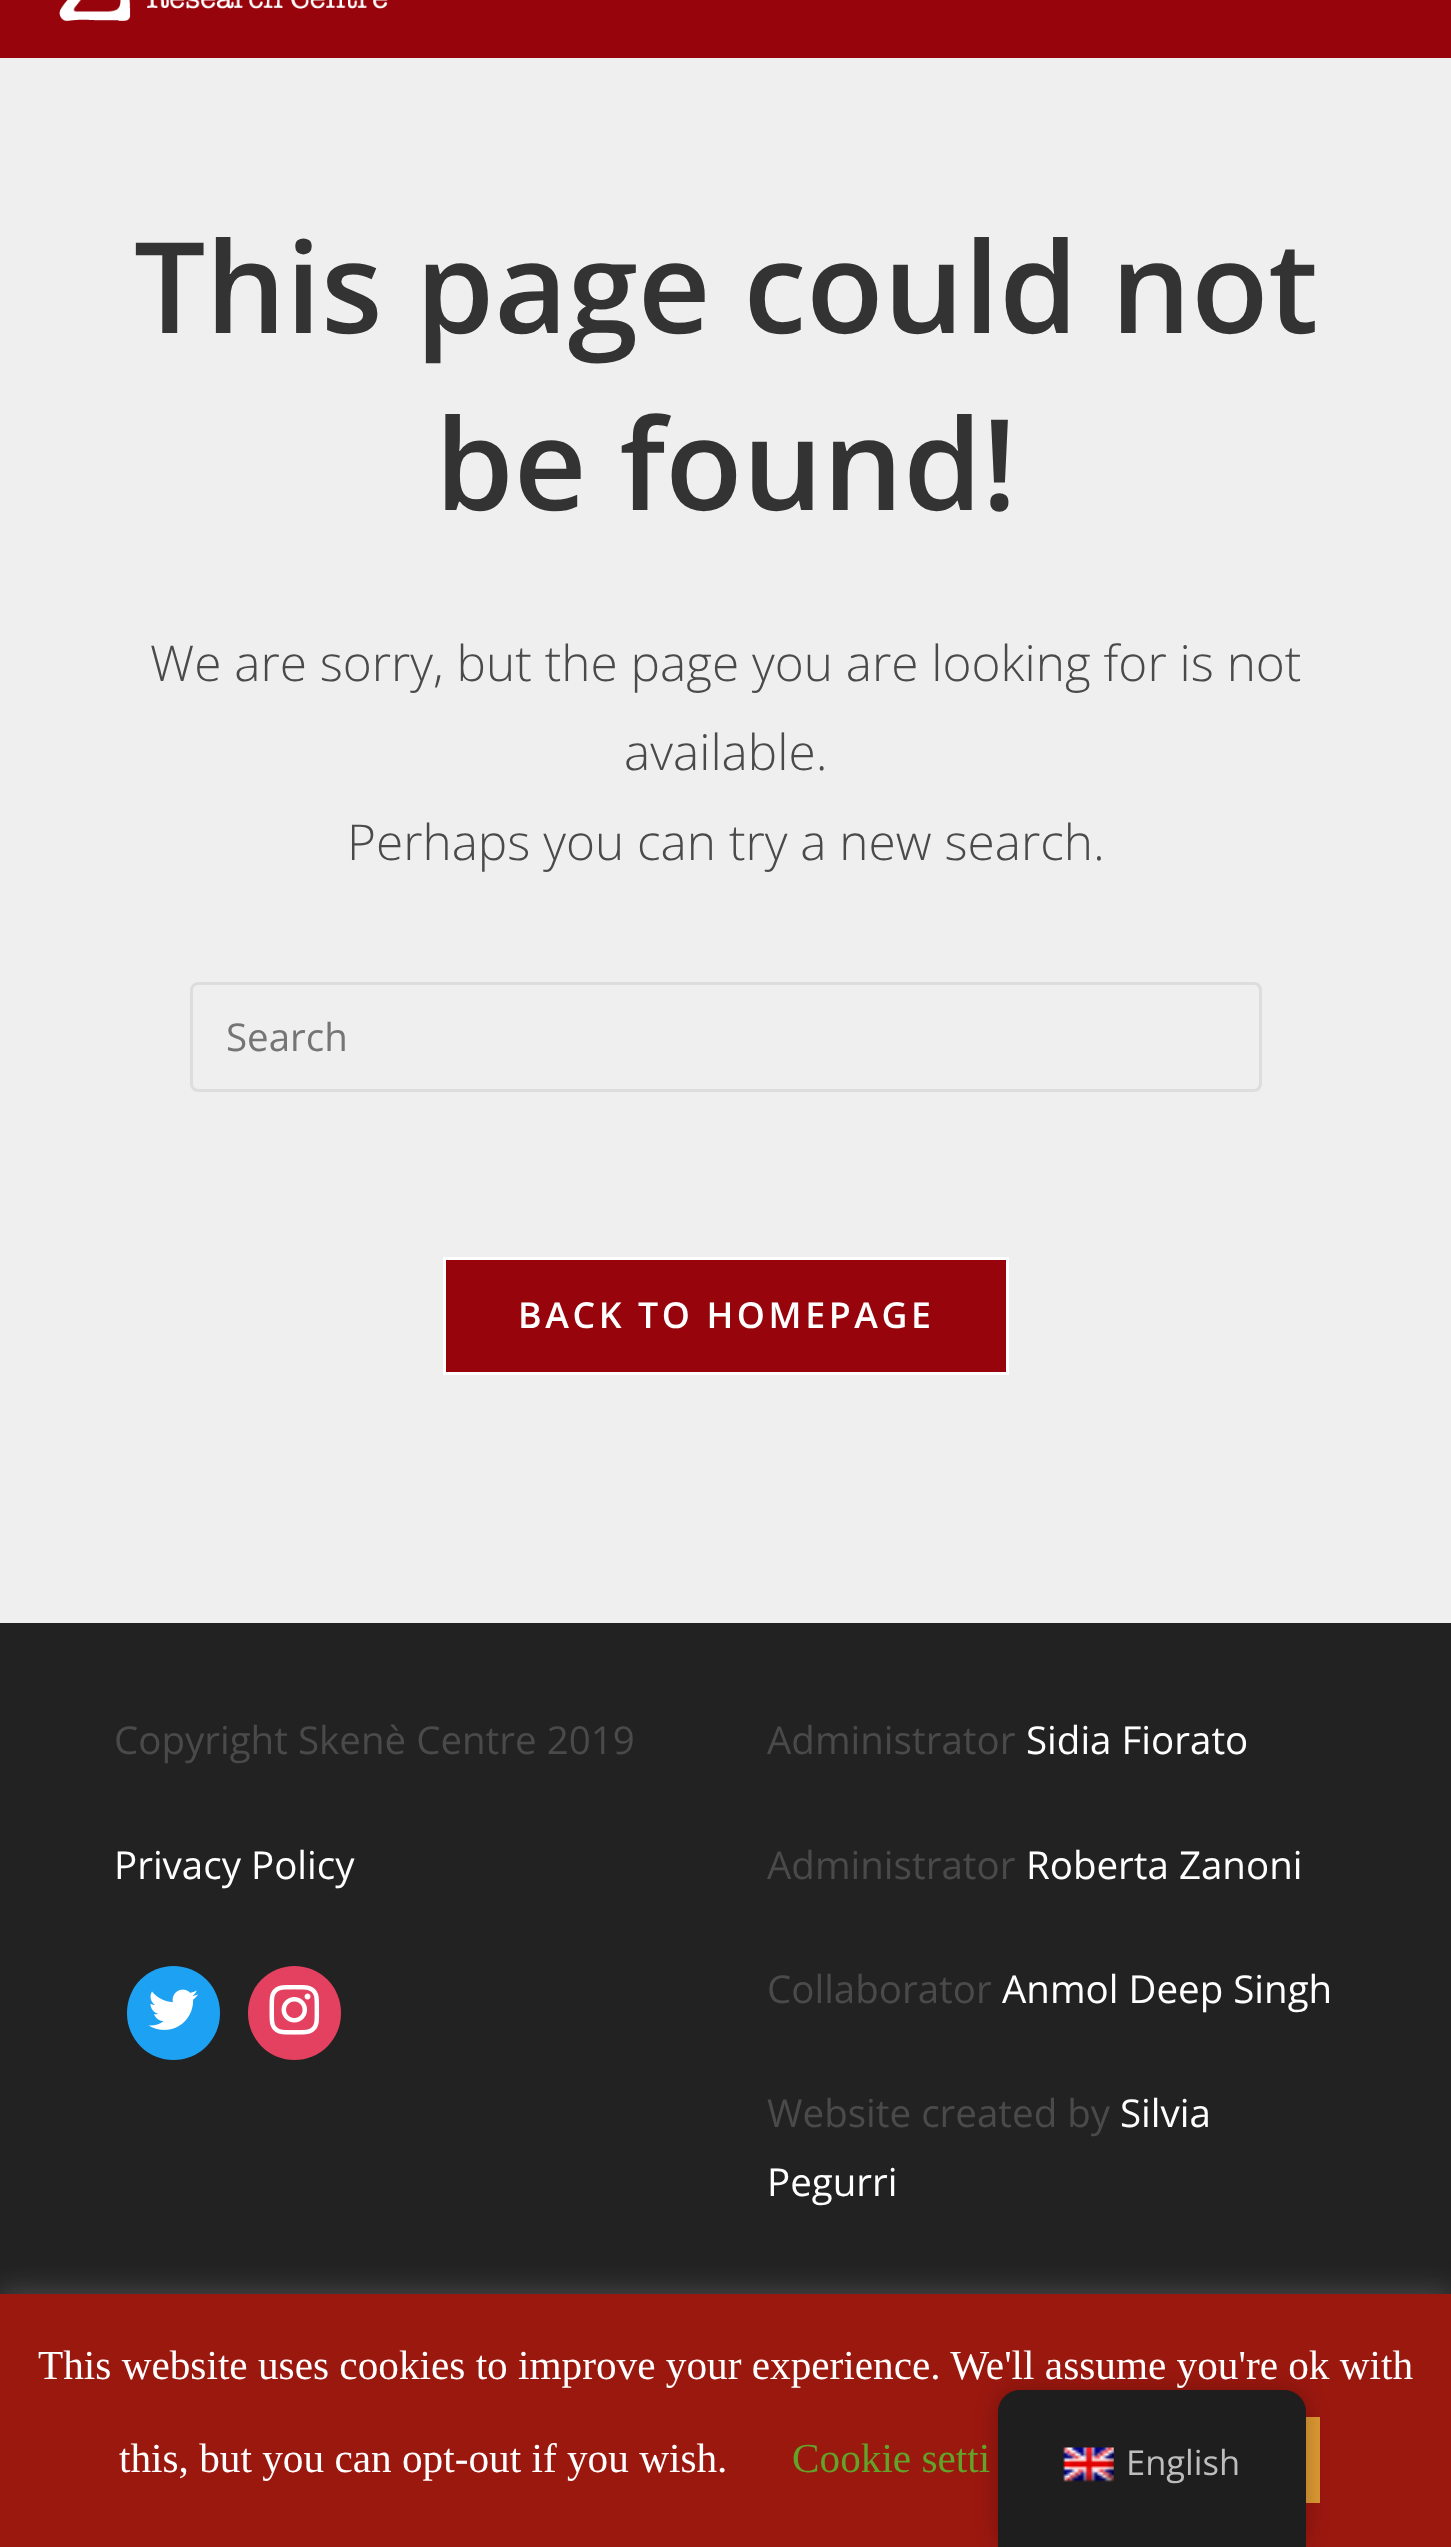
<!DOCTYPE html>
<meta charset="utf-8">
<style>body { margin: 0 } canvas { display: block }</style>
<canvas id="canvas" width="1451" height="2547"></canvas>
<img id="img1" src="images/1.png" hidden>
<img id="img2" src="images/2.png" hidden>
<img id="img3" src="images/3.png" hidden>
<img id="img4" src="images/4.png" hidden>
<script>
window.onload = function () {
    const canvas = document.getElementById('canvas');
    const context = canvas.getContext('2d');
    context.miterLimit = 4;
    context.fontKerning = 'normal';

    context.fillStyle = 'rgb(239, 239, 239)';
    context.fillRect(0, 0, 1451, 2547);
    context.fillStyle = 'rgb(151, 4, 11)';
    context.fillRect(0, 0, 1451, 58);
    context.drawImage(document.getElementById('img1'), 59, 0, 329, 21);
    context.beginPath();
    context.roundRect(191.5, 983.5, 1069, 107, 6.5);
    context.strokeStyle = 'rgb(221, 221, 221)';
    context.lineWidth = 3;
    context.stroke();
    context.beginPath();
    context.rect(444.5, 1258.5, 563, 115);
    context.fill();
    context.strokeStyle = 'rgb(255, 255, 255)';
    context.stroke();
    context.fillStyle = 'rgb(34, 34, 34)';
    context.fillRect(0, 1623, 1451, 671);
    context.fillStyle = 'rgb(29, 161, 242)';
    context.beginPath();
    context.roundRect(127, 1966, 93, 94, 46.5);
    context.fill();
    context.drawImage(document.getElementById('img2'), 148, 1989, 50, 41);
    context.fillStyle = 'rgb(228, 64, 95)';
    context.beginPath();
    context.roundRect(248, 1966, 93, 94, 46.5);
    context.fill();
    context.drawImage(document.getElementById('img3'), 269, 1985, 51, 50);
    context.fillStyle = 'rgba(172, 171, 171, 0.3)';
    context.filter = 'blur(14px)';
    context.beginPath();
    context.rect(0, 2291, 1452, 256);
    context.fill();
    context.filter = 'none';
    context.fillStyle = 'rgb(155, 24, 15)';
    context.fillRect(0, 2294, 1451, 253);
    context.fillStyle = 'rgb(221, 153, 51)';
    context.fillRect(1306, 2417, 14, 86);
    context.fillStyle = 'rgba(0, 0, 0, 0.25)';
    context.filter = 'blur(11px)';
    context.beginPath();
    context.roundRect(998, 2390, 308, 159, 22);
    context.fill();
    context.filter = 'none';
    context.fillStyle = 'rgb(30, 30, 30)';
    context.beginPath();
    context.moveTo(1020, 2390);
    context.lineTo(1284, 2390);
    context.bezierCurveTo(1296, 2390, 1306, 2400, 1306, 2412);
    context.lineTo(1306, 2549);
    context.lineTo(998, 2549);
    context.lineTo(998, 2412);
    context.bezierCurveTo(998, 2400, 1008, 2390, 1020, 2390);
    context.closePath();
    context.fill();
    context.drawImage(document.getElementById('img4'), 1063, 2447, 51, 35);
    context.font = '600 126.5px Open Sans';
    context.fillStyle = 'rgb(51, 51, 51)';
    context.fillText('This page could not', 134, 333);
    context.fillText('be found!', 435, 510);
    context.font = '300 49.5px Open Sans';
    context.fillStyle = 'rgb(74, 74, 74)';
    context.fillText('We are sorry, but the page you are looking for is not', 150, 681);
    context.fillText('available.', 624, 770);
    context.fillText('Perhaps you can try a new search.', 347, 860);
    context.font = '38.5px Open Sans';
    context.fillStyle = 'rgb(117, 117, 117)';
    context.fillText('Search', 226, 1051);
    context.letterSpacing = '3.6px';
    context.font = '600 35.75px Open Sans';
    context.fillStyle = 'rgb(255, 255, 255)';
    context.fillText('BACK TO HOMEPAGE', 518, 1328);
    context.letterSpacing = '0px';
    context.font = '38.5px Open Sans';
    context.fillStyle = 'rgb(74, 74, 74)';
    context.fillText('Copyright Skenè Centre 2019', 114, 1754);
    context.fillStyle = 'rgb(255, 255, 255)';
    context.fillText('Privacy Policy', 114, 1879);
    context.fillStyle = 'rgb(74, 74, 74)';
    context.fillText('Administrator', 767, 1754);
    context.fillStyle = 'rgb(255, 255, 255)';
    context.fillText('Sidia Fiorato', 1026, 1754);
    context.fillStyle = 'rgb(74, 74, 74)';
    context.fillText('Administrator', 767, 1879);
    context.fillStyle = 'rgb(255, 255, 255)';
    context.fillText('Roberta Zanoni', 1026, 1879);
    context.fillStyle = 'rgb(74, 74, 74)';
    context.fillText('Collaborator', 767, 2003);
    context.fillStyle = 'rgb(255, 255, 255)';
    context.fillText('Anmol Deep Singh', 1002, 2003);
    context.fillStyle = 'rgb(74, 74, 74)';
    context.fillText('Website created by', 767, 2127);
    context.fillStyle = 'rgb(255, 255, 255)';
    context.fillText('Silvia', 1120, 2127);
    context.fillText('Pegurri', 767, 2196);
    context.font = '41.25px Liberation Serif';
    context.fillText('This website uses cookies to improve your experience. We\'ll assume you\'re ok with', 38, 2379);
    context.fillText('this, but you can opt-out if you wish.', 119, 2472);
    context.fillStyle = 'rgb(98, 163, 41)';
    context.fillText('Cookie setti', 792, 2472);
    context.font = '34.5px Open Sans';
    context.fillStyle = 'rgb(189, 189, 189)';
    context.fillText('English', 1126, 2475);
};
</script>
